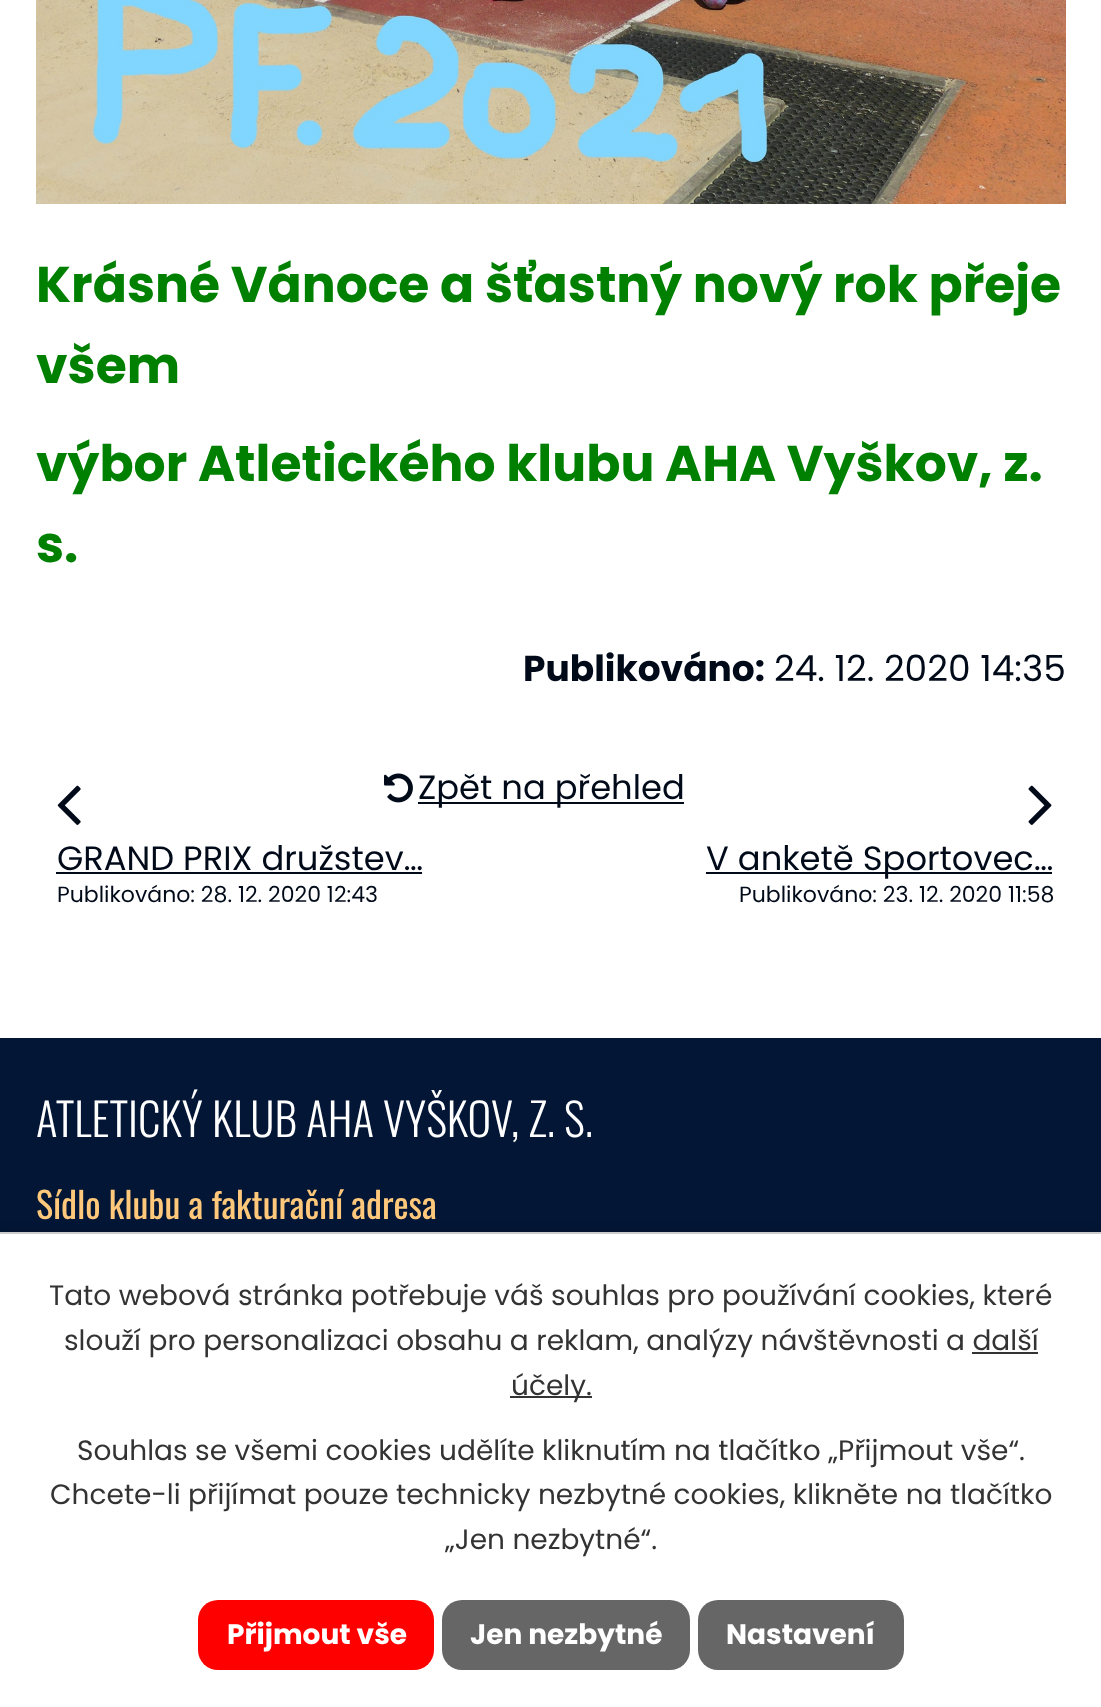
<!DOCTYPE html>
<meta charset="utf-8">
<style>body { margin: 0 } canvas { display: block }</style>
<canvas id="canvas" width="1101" height="1707"></canvas>
<img id="img1" src="images/1.png" hidden>
<img id="img2" src="images/2.png" hidden>
<img id="img3" src="images/3.png" hidden>
<img id="img4" src="images/4.png" hidden>
<script>
window.onload = function () {
    const canvas = document.getElementById('canvas');
    const context = canvas.getContext('2d');
    context.miterLimit = 4;
    context.fontKerning = 'normal';
    let gradient;

    context.fillStyle = 'rgb(255, 255, 255)';
    context.fillRect(0, 0, 1101, 1707);
    context.drawImage(document.getElementById('img1'), 36, 0, 1030, 204);
    context.drawImage(document.getElementById('img2'), 384, 773, 29, 30);
    context.fillStyle = 'rgb(1, 10, 25)';
    context.fillRect(418, 802, 266, 2);
    context.drawImage(document.getElementById('img3'), 57, 785, 24, 40);
    context.fillRect(56, 872, 366, 2);
    context.drawImage(document.getElementById('img4'), 1028, 785, 24, 40);
    context.fillRect(706, 872, 346, 2);
    gradient = context.createLinearGradient(551, 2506, 551, 1038);
    gradient.addColorStop(0, 'rgb(183, 29, 41)');
    gradient.addColorStop(0.8, 'rgb(3, 22, 53)');
    context.fillStyle = gradient;
    context.fillRect(0, 1038, 1101, 194);
    context.fillStyle = 'rgba(0, 0, 0, 0.2)';
    context.filter = 'blur(5px)';
    context.beginPath();
    context.rect(0, 1232, 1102, 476);
    context.fill();
    context.filter = 'none';
    context.fillStyle = 'rgb(255, 255, 255)';
    context.fillRect(0, 1234, 1101, 473);
    context.fillStyle = 'rgb(204, 204, 204)';
    context.fillRect(0, 1232, 1101, 2);
    context.fillStyle = 'rgb(51, 51, 51)';
    context.fillRect(972, 1352, 66, 2);
    context.fillRect(510, 1396, 82, 2);
    context.fillStyle = 'rgb(255, 0, 0)';
    context.beginPath();
    context.roundRect(198, 1600, 236, 70, 20);
    context.fill();
    context.fillStyle = 'rgb(102, 102, 102)';
    context.beginPath();
    context.roundRect(442, 1600, 248, 70, 20);
    context.fill();
    context.beginPath();
    context.roundRect(698, 1600, 206, 70, 20);
    context.fill();
    context.font = 'bold 50.4px Poppins';
    context.fillStyle = 'rgb(0, 128, 0)';
    context.fillText('Krásné Vánoce a šťastný nový rok přeje', 36, 302);
    context.fillText('všem', 36, 383);
    context.fillText('výbor Atletického klubu AHA Vyškov, z.', 36, 481);
    context.fillText('s.', 36, 562);
    context.font = 'bold 36px Poppins';
    context.fillStyle = 'rgb(1, 10, 25)';
    context.fillText('Publikováno:', 523, 681);
    context.font = '36px Poppins';
    context.fillText('24. 12. 2020 14:35', 774, 681);
    context.font = '33.75px Poppins';
    context.fillText('Zpět na přehled', 418, 799);
    context.fillText('GRAND PRIX družstev…', 57, 870);
    context.font = '22px Poppins';
    context.fillText('Publikováno: 28. 12. 2020 12:43', 57, 902);
    context.font = '33.75px Poppins';
    context.fillText('V anketě Sportovec…', 706, 870);
    context.font = '22px Poppins';
    context.fillText('Publikováno: 23. 12. 2020 11:58', 739, 902);
    context.font = '300 45px Oswald';
    context.fillStyle = 'rgb(255, 255, 255)';
    context.fillText('ATLETICKÝ KLUB AHA VYŠKOV, Z. S.', 36, 1137);
    context.font = '36px Oswald';
    context.fillStyle = 'rgb(255, 200, 123)';
    context.fillText('Sídlo klubu a fakturační adresa', 36, 1219);
    context.font = '28px Poppins';
    context.fillStyle = 'rgb(51, 51, 51)';
    context.fillText('Tato webová stránka potřebuje váš souhlas pro používání cookies, které', 49, 1305);
    context.fillText('slouží pro personalizaci obsahu a reklam, analýzy návštěvnosti a další', 64, 1350);
    context.fillText('účely.', 511, 1395);
    context.fillText('Souhlas se všemi cookies udělíte kliknutím na tlačítko „Přijmout vše“.', 77, 1460);
    context.fillText('Chcete-li přijímat pouze technicky nezbytné cookies, klikněte na tlačítko', 50, 1504);
    context.fillText('„Jen nezbytné“.', 445, 1549);
    context.font = 'bold 28px Poppins';
    context.fillStyle = 'rgb(255, 255, 255)';
    context.fillText('Přijmout vše', 227, 1644);
    context.fillText('Jen nezbytné', 470, 1644);
    context.fillText('Nastavení', 726, 1644);
};
</script>
